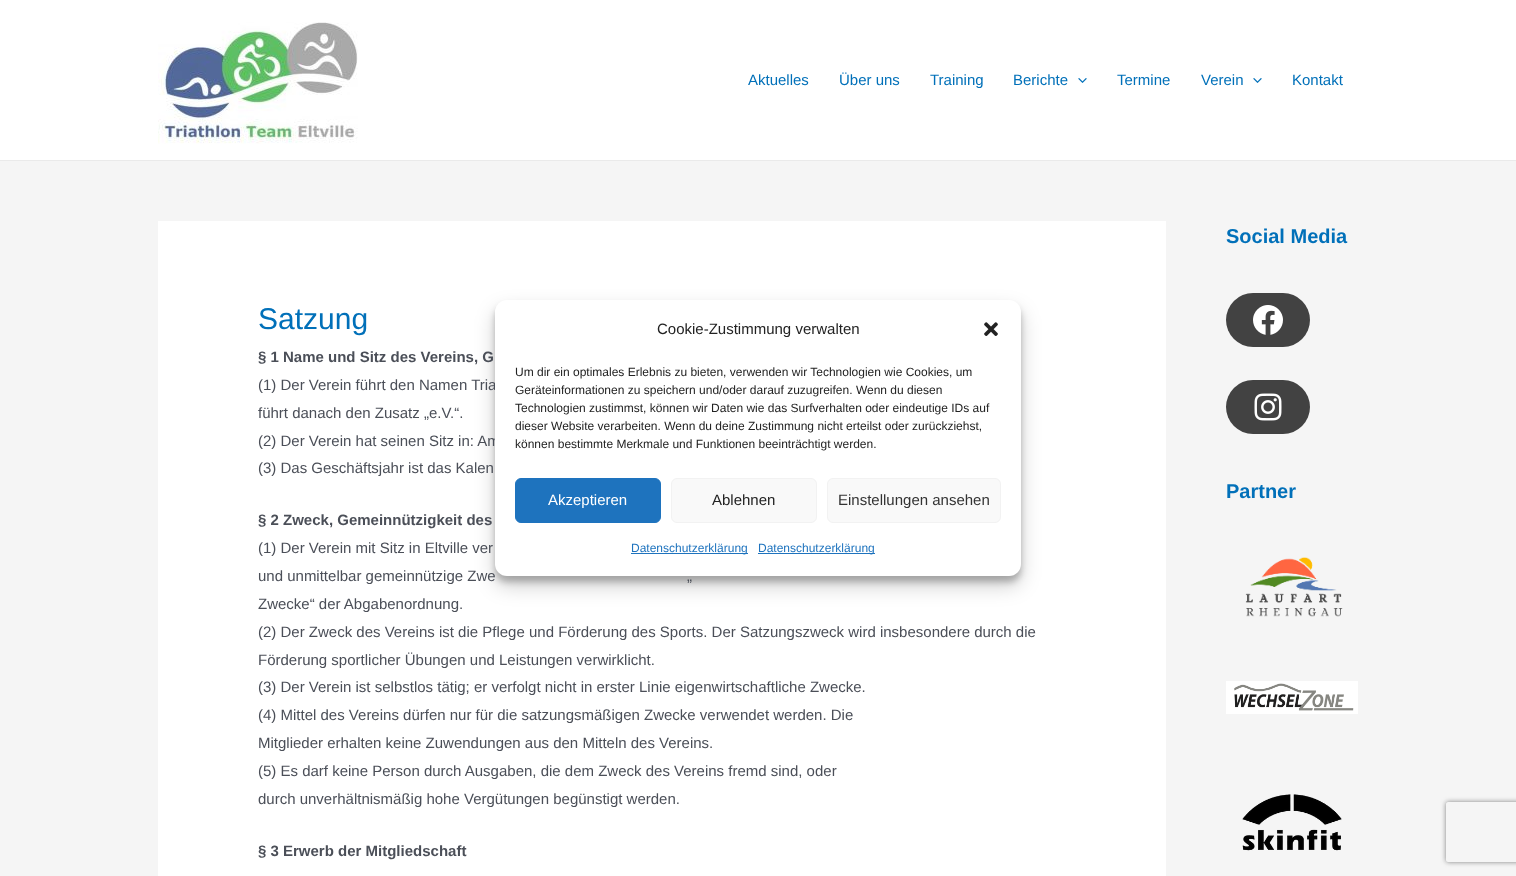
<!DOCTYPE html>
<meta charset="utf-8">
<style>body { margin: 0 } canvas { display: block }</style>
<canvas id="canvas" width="1516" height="876"></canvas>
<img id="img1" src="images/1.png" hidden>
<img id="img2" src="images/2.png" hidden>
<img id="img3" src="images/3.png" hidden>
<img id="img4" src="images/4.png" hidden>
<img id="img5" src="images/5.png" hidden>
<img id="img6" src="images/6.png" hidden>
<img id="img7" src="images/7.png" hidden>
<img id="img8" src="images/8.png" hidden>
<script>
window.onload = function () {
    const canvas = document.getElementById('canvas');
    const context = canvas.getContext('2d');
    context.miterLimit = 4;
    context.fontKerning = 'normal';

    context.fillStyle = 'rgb(245, 245, 245)';
    context.fillRect(0, 0, 1516, 876);
    context.fillStyle = 'rgb(255, 255, 255)';
    context.fillRect(0, 0, 1516, 160);
    context.fillStyle = 'rgb(234, 234, 234)';
    context.fillRect(0, 160, 1516, 1);
    context.drawImage(document.getElementById('img1'), 158, 22, 200, 122);
    context.drawImage(document.getElementById('img2'), 1078, 78, 9, 5);
    context.drawImage(document.getElementById('img2'), 1253, 78, 9, 5);
    context.fillStyle = 'rgb(255, 255, 255)';
    context.fillRect(158, 221, 1008, 655);
    context.fillStyle = 'rgb(66, 66, 66)';
    context.beginPath();
    context.roundRect(1226, 293, 84, 54, 27);
    context.fill();
    context.drawImage(document.getElementById('img3'), 1253, 305, 30, 30);
    context.beginPath();
    context.roundRect(1226, 380, 84, 54, 27);
    context.fill();
    context.drawImage(document.getElementById('img4'), 1254, 393, 28, 28);
    context.drawImage(document.getElementById('img5'), 1245, 557, 98, 60);
    context.drawImage(document.getElementById('img6'), 1226, 681, 132, 33);
    context.drawImage(document.getElementById('img7'), 1242, 794, 100, 57);
    context.fillStyle = 'rgba(0, 0, 0, 0.23)';
    context.filter = 'blur(3px)';
    context.beginPath();
    context.roundRect(495, 306, 526, 276, 12);
    context.fill();
    context.filter = 'none';
    context.fillStyle = 'rgba(0, 0, 0, 0.19)';
    context.filter = 'blur(10px)';
    context.beginPath();
    context.roundRect(495, 310, 526, 276, 12);
    context.fill();
    context.filter = 'none';
    context.save();
    context.beginPath();
    context.moveTo(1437, 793);
    context.lineTo(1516, 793);
    context.lineTo(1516, 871);
    context.lineTo(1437, 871);
    context.closePath();
    context.moveTo(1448, 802);
    context.lineTo(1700, 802);
    context.bezierCurveTo(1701, 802, 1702, 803, 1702, 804);
    context.lineTo(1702, 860);
    context.bezierCurveTo(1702, 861, 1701, 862, 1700, 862);
    context.lineTo(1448, 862);
    context.bezierCurveTo(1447, 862, 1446, 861, 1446, 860);
    context.lineTo(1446, 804);
    context.bezierCurveTo(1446, 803, 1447, 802, 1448, 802);
    context.closePath();
    context.clip('evenodd');
    context.fillStyle = 'rgb(128, 128, 128)';
    context.filter = 'blur(2.5px)';
    context.beginPath();
    context.roundRect(1446, 802, 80, 60, 2);
    context.fill();
    context.filter = 'none';
    context.restore();
    context.font = '15px Liberation Sans';
    context.fillStyle = 'rgb(1, 112, 185)';
    context.fillText('Aktuelles', 748, 85);
    context.fillText('Über uns', 839, 85);
    context.fillText('Training', 930, 85);
    context.fillText('Berichte', 1013, 85);
    context.fillText('Termine', 1117, 85);
    context.fillText('Verein', 1201, 85);
    context.fillText('Kontakt', 1292, 85);
    context.font = '30px Liberation Sans';
    context.fillText('Satzung', 258, 329);
    context.font = 'bold 15px Liberation Sans';
    context.fillStyle = 'rgb(75, 79, 88)';
    context.fillText('§ 1 Name und Sitz des Vereins, G', 258, 362);
    context.font = '15px Liberation Sans';
    context.fillText('(1) Der Verein führt den Namen Tria', 258, 390);
    context.fillText('führt danach den Zusatz „e.V.“.', 258, 418);
    context.fillText('(2) Der Verein hat seinen Sitz in: Am', 258, 446);
    context.fillText('(3) Das Geschäftsjahr ist das Kalen', 258, 473);
    context.font = 'bold 15px Liberation Sans';
    context.fillText('§ 2 Zweck, Gemeinnützigkeit des', 258, 525);
    context.font = '15px Liberation Sans';
    context.fillText('(1) Der Verein mit Sitz in Eltville ver', 258, 553);
    context.fillText('und unmittelbar gemeinnützige Zwe', 258, 581);
    context.fillText('„', 687, 581);
    context.fillText('Zwecke“ der Abgabenordnung.', 258, 609);
    context.fillText('(2) Der Zweck des Vereins ist die Pflege und Förderung des Sports. Der Satzungszweck wird insbesondere durch die', 258, 637);
    context.fillText('Förderung sportlicher Übungen und Leistungen verwirklicht.', 258, 665);
    context.fillText('(3) Der Verein ist selbstlos tätig; er verfolgt nicht in erster Linie eigenwirtschaftliche Zwecke.', 258, 692);
    context.fillText('(4) Mittel des Vereins dürfen nur für die satzungsmäßigen Zwecke verwendet werden. Die', 258, 720);
    context.fillText('Mitglieder erhalten keine Zuwendungen aus den Mitteln des Vereins.', 258, 748);
    context.fillText('(5) Es darf keine Person durch Ausgaben, die dem Zweck des Vereins fremd sind, oder', 258, 776);
    context.fillText('durch unverhältnismäßig hohe Vergütungen begünstigt werden.', 258, 804);
    context.font = 'bold 15px Liberation Sans';
    context.fillText('§ 3 Erwerb der Mitgliedschaft', 258, 856);
    context.font = 'bold 20px Liberation Sans';
    context.fillStyle = 'rgb(1, 112, 185)';
    context.fillText('Social Media', 1226, 243);
    context.fillText('Partner', 1226, 498);
    context.fillStyle = 'rgb(255, 255, 255)';
    context.beginPath();
    context.roundRect(495, 300, 526, 276, 12);
    context.fill();
    context.font = '15px Liberation Sans';
    context.fillStyle = 'rgb(34, 34, 34)';
    context.fillText('Cookie-Zustimmung verwalten', 657, 334);
    context.drawImage(document.getElementById('img8'), 984, 322, 14, 14);
    context.font = '12px Liberation Sans';
    context.fillText('Um dir ein optimales Erlebnis zu bieten, verwenden wir Technologien wie Cookies, um', 515, 376);
    context.fillText('Geräteinformationen zu speichern und/oder darauf zuzugreifen. Wenn du diesen', 515, 394);
    context.fillText('Technologien zustimmst, können wir Daten wie das Surfverhalten oder eindeutige IDs auf', 515, 412);
    context.fillText('dieser Website verarbeiten. Wenn du deine Zustimmung nicht erteilst oder zurückziehst,', 515, 430);
    context.fillText('können bestimmte Merkmale und Funktionen beeinträchtigt werden.', 515, 448);
    context.fillStyle = 'rgb(30, 115, 190)';
    context.beginPath();
    context.roundRect(515.5, 478.5, 145, 44, 5.5);
    context.fill();
    context.strokeStyle = 'rgb(30, 115, 190)';
    context.stroke();
    context.font = '15px Liberation Sans';
    context.fillStyle = 'rgb(255, 255, 255)';
    context.fillText('Akzeptieren', 548, 505);
    context.fillStyle = 'rgb(249, 249, 249)';
    context.beginPath();
    context.roundRect(671.5, 478.5, 145, 44, 5.5);
    context.fill();
    context.strokeStyle = 'rgb(242, 242, 242)';
    context.stroke();
    context.fillStyle = 'rgb(34, 34, 34)';
    context.fillText('Ablehnen', 712, 505);
    context.fillStyle = 'rgb(249, 249, 249)';
    context.beginPath();
    context.roundRect(827.5, 478.5, 173, 44, 5.5);
    context.fill();
    context.stroke();
    context.fillStyle = 'rgb(51, 51, 51)';
    context.fillText('Einstellungen ansehen', 838, 505);
    context.fillStyle = 'rgb(30, 115, 190)';
    context.fillRect(631, 553, 117, 1);
    context.font = '12px Liberation Sans';
    context.fillText('Datenschutzerklärung', 631, 552);
    context.fillRect(758, 553, 117, 1);
    context.fillText('Datenschutzerklärung', 758, 552);
};
</script>
